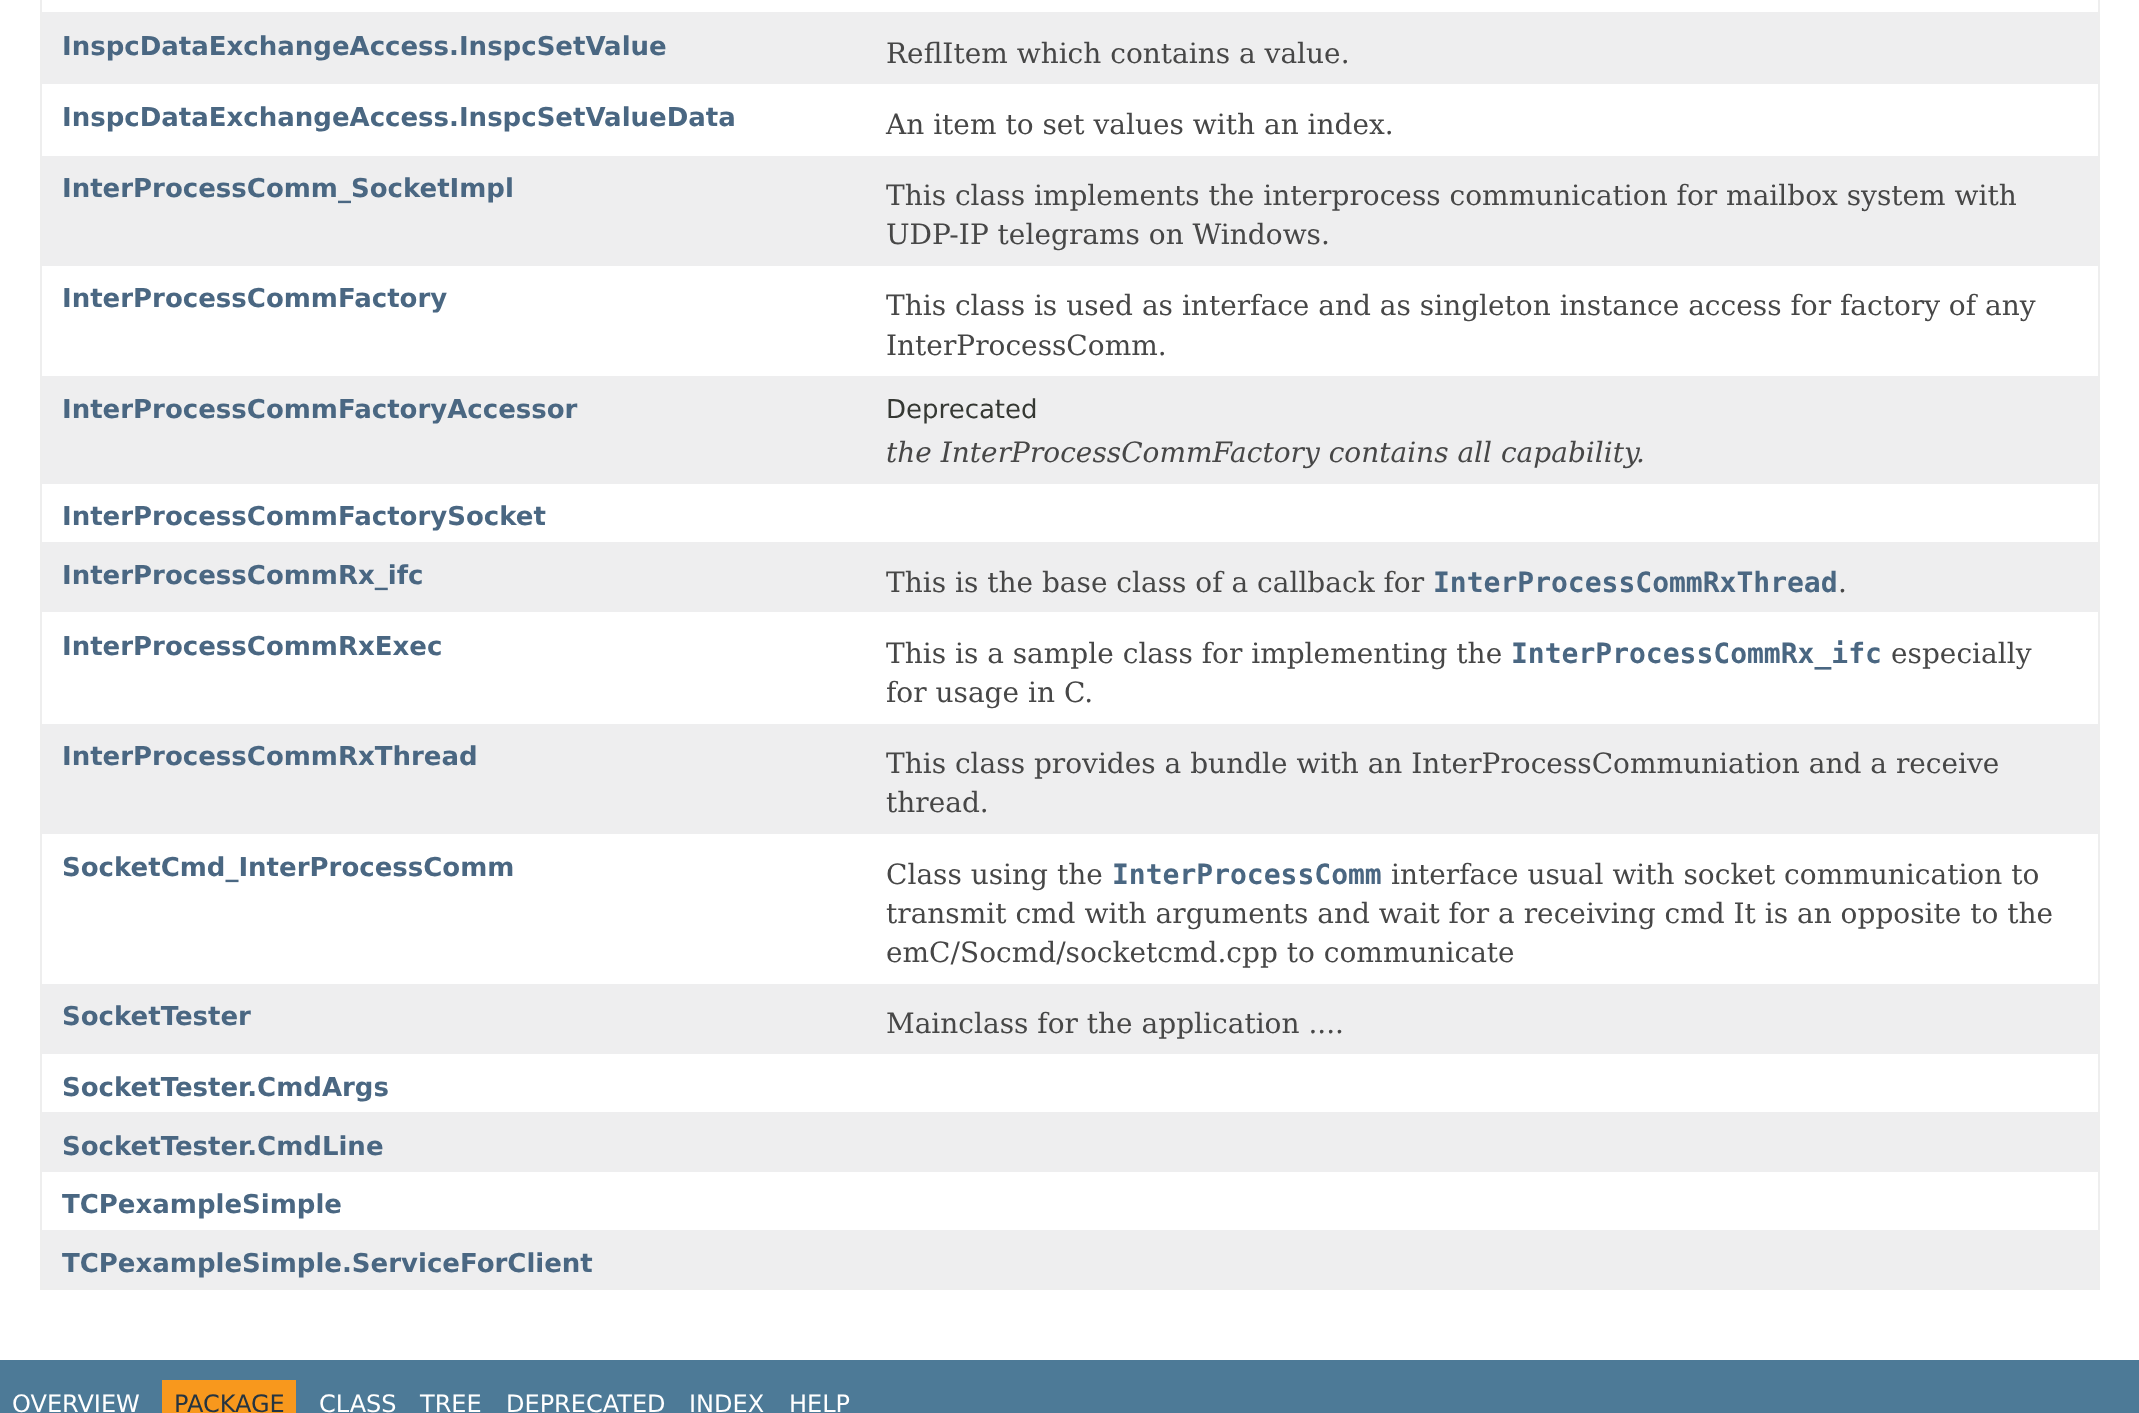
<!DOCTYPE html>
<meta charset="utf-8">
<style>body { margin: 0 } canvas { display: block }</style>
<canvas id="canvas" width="2139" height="1413"></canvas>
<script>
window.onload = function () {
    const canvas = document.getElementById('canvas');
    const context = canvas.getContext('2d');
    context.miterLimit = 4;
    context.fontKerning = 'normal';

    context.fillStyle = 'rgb(255, 255, 255)';
    context.fillRect(0, 0, 2139, 1413);
    context.fillStyle = 'rgb(238, 238, 238)';
    context.fillRect(2098, 0, 2, 1290);
    context.fillRect(40, 1288, 2060, 2);
    context.fillRect(40, 0, 2, 1290);
    context.fillStyle = 'rgb(238, 238, 239)';
    context.fillRect(42, 12, 2056, 72);
    context.fillRect(42, 156, 2056, 110);
    context.fillRect(42, 376, 2056, 108);
    context.fillRect(42, 542, 2056, 70);
    context.fillRect(42, 724, 2056, 110);
    context.fillRect(42, 984, 2056, 70);
    context.fillRect(42, 1112, 2056, 60);
    context.fillRect(42, 1230, 2056, 58);
    context.fillStyle = 'rgb(77, 122, 151)';
    context.fillRect(0, 1360, 2139, 53);
    context.fillStyle = 'rgb(248, 152, 29)';
    context.fillRect(162, 1380, 134, 33);
    context.font = 'bold 26px DejaVu Sans';
    context.fillStyle = 'rgb(74, 103, 130)';
    context.fillText('InspcDataExchangeAccess.InspcSetValue', 62, 55);
    context.font = '28px DejaVu Serif';
    context.fillStyle = 'rgb(71, 71, 71)';
    context.fillText('ReflItem which contains a value.', 886, 63);
    context.font = 'bold 26px DejaVu Sans';
    context.fillStyle = 'rgb(74, 103, 130)';
    context.fillText('InspcDataExchangeAccess.InspcSetValueData', 62, 126);
    context.font = '28px DejaVu Serif';
    context.fillStyle = 'rgb(71, 71, 71)';
    context.fillText('An item to set values with an index.', 886, 134);
    context.font = 'bold 26px DejaVu Sans';
    context.fillStyle = 'rgb(74, 103, 130)';
    context.fillText('InterProcessComm_SocketImpl', 62, 197);
    context.font = '28px DejaVu Serif';
    context.fillStyle = 'rgb(71, 71, 71)';
    context.fillText('This class implements the interprocess communication for mailbox system with', 886, 205);
    context.fillText('UDP-IP telegrams on Windows.', 886, 244);
    context.font = 'bold 26px DejaVu Sans';
    context.fillStyle = 'rgb(74, 103, 130)';
    context.fillText('InterProcessCommFactory', 62, 307);
    context.font = '28px DejaVu Serif';
    context.fillStyle = 'rgb(71, 71, 71)';
    context.fillText('This class is used as interface and as singleton instance access for factory of any', 886, 315);
    context.fillText('InterProcessComm.', 886, 355);
    context.font = 'bold 26px DejaVu Sans';
    context.fillStyle = 'rgb(74, 103, 130)';
    context.fillText('InterProcessCommFactoryAccessor', 62, 418);
    context.font = '26px DejaVu Sans';
    context.fillStyle = 'rgb(53, 56, 51)';
    context.fillText('Deprecated', 886, 418);
    context.font = 'italic 28px DejaVu Serif';
    context.fillStyle = 'rgb(71, 71, 71)';
    context.fillText('the InterProcessCommFactory contains all capability.', 886, 462);
    context.font = 'bold 26px DejaVu Sans';
    context.fillStyle = 'rgb(74, 103, 130)';
    context.fillText('InterProcessCommFactorySocket', 62, 525);
    context.fillText('InterProcessCommRx_ifc', 62, 584);
    context.font = '28px DejaVu Serif';
    context.fillStyle = 'rgb(71, 71, 71)';
    context.fillText('This is the base class of a callback for', 886, 592);
    context.font = 'bold 28px DejaVu Sans Mono';
    context.fillStyle = 'rgb(74, 103, 130)';
    context.fillText('InterProcessCommRxThread', 1433, 592);
    context.font = '28px DejaVu Serif';
    context.fillStyle = 'rgb(71, 71, 71)';
    context.fillText('.', 1838, 592);
    context.font = 'bold 26px DejaVu Sans';
    context.fillStyle = 'rgb(74, 103, 130)';
    context.fillText('InterProcessCommRxExec', 62, 655);
    context.font = '28px DejaVu Serif';
    context.fillStyle = 'rgb(71, 71, 71)';
    context.fillText('This is a sample class for implementing the', 886, 663);
    context.font = 'bold 28px DejaVu Sans Mono';
    context.fillStyle = 'rgb(74, 103, 130)';
    context.fillText('InterProcessCommRx_ifc', 1511, 663);
    context.font = '28px DejaVu Serif';
    context.fillStyle = 'rgb(71, 71, 71)';
    context.fillText('especially', 1891, 663);
    context.fillText('for usage in C.', 886, 702);
    context.font = 'bold 26px DejaVu Sans';
    context.fillStyle = 'rgb(74, 103, 130)';
    context.fillText('InterProcessCommRxThread', 62, 765);
    context.font = '28px DejaVu Serif';
    context.fillStyle = 'rgb(71, 71, 71)';
    context.fillText('This class provides a bundle with an InterProcessCommuniation and a receive', 886, 773);
    context.fillText('thread.', 886, 812);
    context.font = 'bold 26px DejaVu Sans';
    context.fillStyle = 'rgb(74, 103, 130)';
    context.fillText('SocketCmd_InterProcessComm', 62, 876);
    context.font = '28px DejaVu Serif';
    context.fillStyle = 'rgb(71, 71, 71)';
    context.fillText('Class using the', 886, 884);
    context.font = 'bold 28px DejaVu Sans Mono';
    context.fillStyle = 'rgb(74, 103, 130)';
    context.fillText('InterProcessComm', 1112, 884);
    context.font = '28px DejaVu Serif';
    context.fillStyle = 'rgb(71, 71, 71)';
    context.fillText('interface usual with socket communication to', 1391, 884);
    context.fillText('transmit cmd with arguments and wait for a receiving cmd It is an opposite to the', 886, 923);
    context.fillText('emC/Socmd/socketcmd.cpp to communicate', 886, 962);
    context.font = 'bold 26px DejaVu Sans';
    context.fillStyle = 'rgb(74, 103, 130)';
    context.fillText('SocketTester', 62, 1025);
    context.font = '28px DejaVu Serif';
    context.fillStyle = 'rgb(71, 71, 71)';
    context.fillText('Mainclass for the application ....', 886, 1033);
    context.font = 'bold 26px DejaVu Sans';
    context.fillStyle = 'rgb(74, 103, 130)';
    context.fillText('SocketTester.CmdArgs', 62, 1096);
    context.fillText('SocketTester.CmdLine', 62, 1155);
    context.fillText('TCPexampleSimple', 62, 1213);
    context.fillText('TCPexampleSimple.ServiceForClient', 62, 1272);
    context.font = '24px DejaVu Sans';
    context.fillStyle = 'rgb(255, 255, 255)';
    context.fillText('OVERVIEW', 12, 1412);
    context.fillStyle = 'rgb(37, 52, 65)';
    context.fillText('PACKAGE', 174, 1412);
    context.fillStyle = 'rgb(255, 255, 255)';
    context.fillText('CLASS', 319, 1412);
    context.fillText('TREE', 420, 1412);
    context.fillText('DEPRECATED', 506, 1412);
    context.fillText('INDEX', 689, 1412);
    context.fillText('HELP', 789, 1412);
};
</script>
